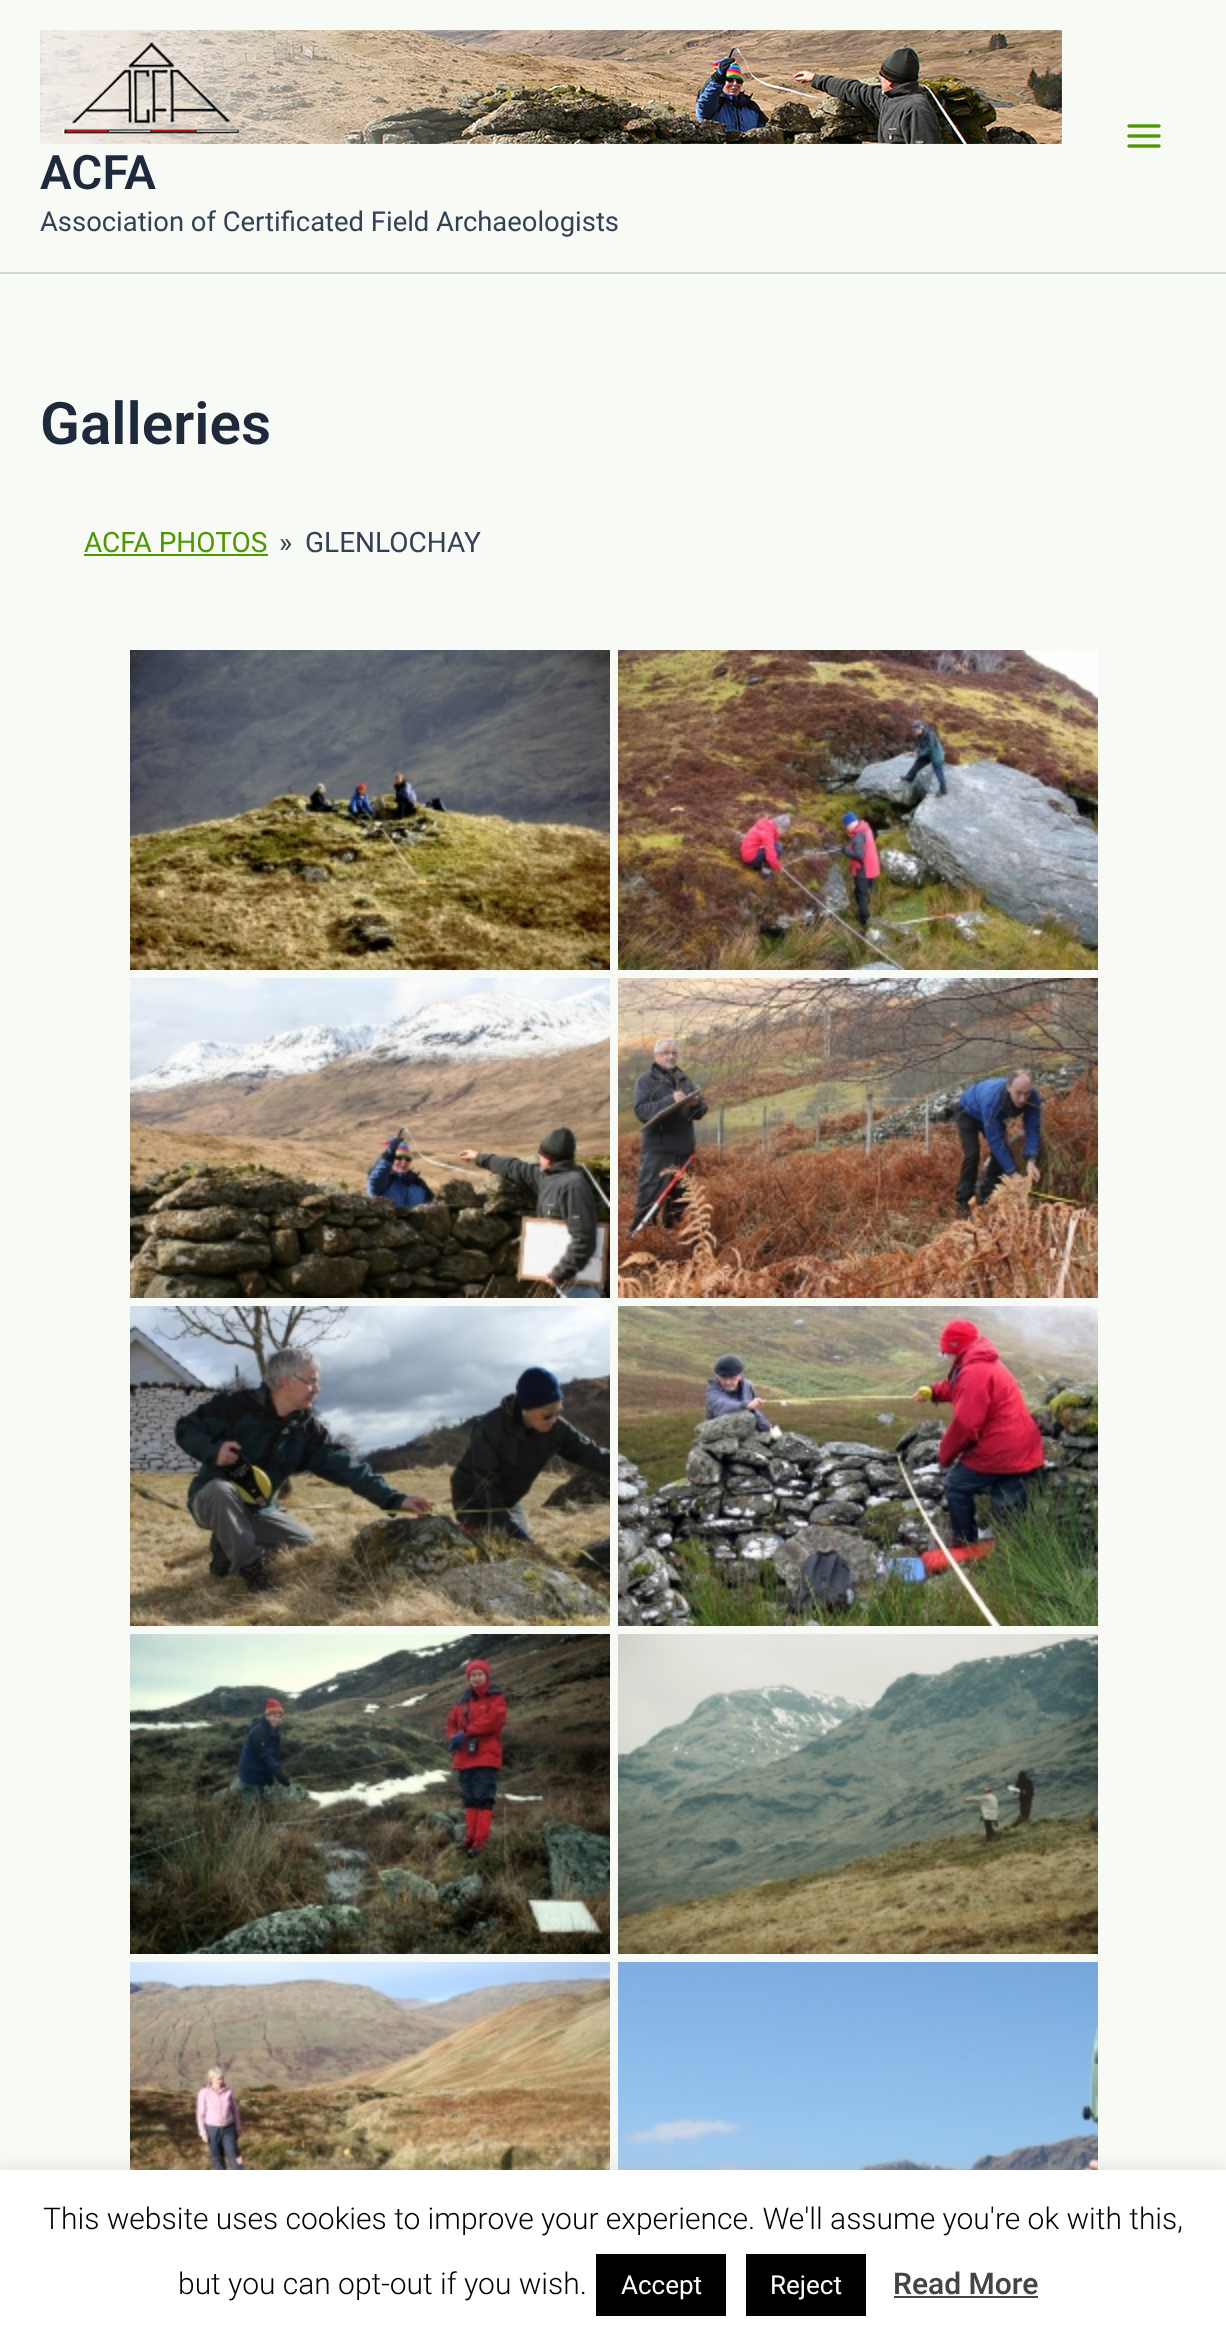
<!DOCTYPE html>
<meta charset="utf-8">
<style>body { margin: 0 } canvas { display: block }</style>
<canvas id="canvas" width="1226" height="2350"></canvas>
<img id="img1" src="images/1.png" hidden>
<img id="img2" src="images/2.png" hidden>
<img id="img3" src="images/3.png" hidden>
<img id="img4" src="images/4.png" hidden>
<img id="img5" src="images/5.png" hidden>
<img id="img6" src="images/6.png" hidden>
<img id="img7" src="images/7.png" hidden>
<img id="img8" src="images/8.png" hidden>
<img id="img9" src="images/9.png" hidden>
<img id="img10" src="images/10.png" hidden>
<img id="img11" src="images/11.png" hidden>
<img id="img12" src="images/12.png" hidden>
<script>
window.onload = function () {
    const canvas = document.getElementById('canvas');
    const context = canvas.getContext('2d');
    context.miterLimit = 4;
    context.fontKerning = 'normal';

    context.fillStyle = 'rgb(247, 250, 245)';
    context.fillRect(0, 0, 1226, 2350);
    context.fillStyle = 'rgb(209, 213, 219)';
    context.fillRect(0, 272, 1226, 2);
    context.drawImage(document.getElementById('img1'), 1127, 124, 34, 24);
    context.drawImage(document.getElementById('img2'), 40, 30, 1022, 114);
    context.fillStyle = 'rgb(80, 150, 0)';
    context.fillRect(84, 554, 184, 2);
    context.drawImage(document.getElementById('img3'), 130, 650, 480, 320);
    context.drawImage(document.getElementById('img4'), 618, 650, 480, 320);
    context.drawImage(document.getElementById('img5'), 130, 978, 480, 320);
    context.drawImage(document.getElementById('img6'), 618, 978, 480, 320);
    context.drawImage(document.getElementById('img7'), 130, 1306, 480, 320);
    context.drawImage(document.getElementById('img8'), 618, 1306, 480, 320);
    context.drawImage(document.getElementById('img9'), 130, 1634, 480, 320);
    context.drawImage(document.getElementById('img10'), 618, 1634, 480, 320);
    context.drawImage(document.getElementById('img11'), 130, 1962, 480, 208);
    context.drawImage(document.getElementById('img12'), 618, 1962, 480, 208);
    context.fillStyle = 'rgba(172, 171, 171, 0.3)';
    context.filter = 'blur(10px)';
    context.beginPath();
    context.rect(0, 2168, 1226, 180);
    context.fill();
    context.filter = 'none';
    context.fillStyle = 'rgb(255, 255, 255)';
    context.fillRect(0, 2170, 1226, 180);
    context.fillStyle = 'rgb(0, 0, 0)';
    context.fillRect(596, 2254, 130, 62);
    context.fillRect(746, 2254, 120, 62);
    context.fillStyle = 'rgb(68, 68, 68)';
    context.fillRect(894, 2296, 144, 2);
    context.font = '600 47.5px Roboto';
    context.fillStyle = 'rgb(30, 41, 59)';
    context.fillText('ACFA', 40, 189);
    context.font = '27.4px Roboto';
    context.fillStyle = 'rgb(51, 65, 85)';
    context.fillText('Association of Certificated Field Archaeologists', 40, 231);
    context.font = '600 58.5px Roboto';
    context.fillStyle = 'rgb(30, 41, 59)';
    context.fillText('Galleries', 40, 444);
    context.font = '28px Roboto';
    context.fillStyle = 'rgb(80, 150, 0)';
    context.fillText('ACFA PHOTOS', 84, 552);
    context.fillStyle = 'rgb(51, 65, 85)';
    context.fillText('»', 279, 552);
    context.fillText('GLENLOCHAY', 305, 552);
    context.font = '300 30px Roboto';
    context.fillStyle = 'rgb(0, 0, 0)';
    context.fillText('This website uses cookies to improve your experience. We\'ll assume you\'re ok with this,', 43, 2229);
    context.fillText('but you can opt-out if you wish.', 178, 2294);
    context.font = '26px Roboto';
    context.fillStyle = 'rgb(255, 255, 255)';
    context.fillText('Accept', 621, 2294);
    context.fillText('Reject', 770, 2294);
    context.font = '500 30px Roboto';
    context.fillStyle = 'rgb(68, 68, 68)';
    context.fillText('Read More', 893, 2294);
};
</script>
